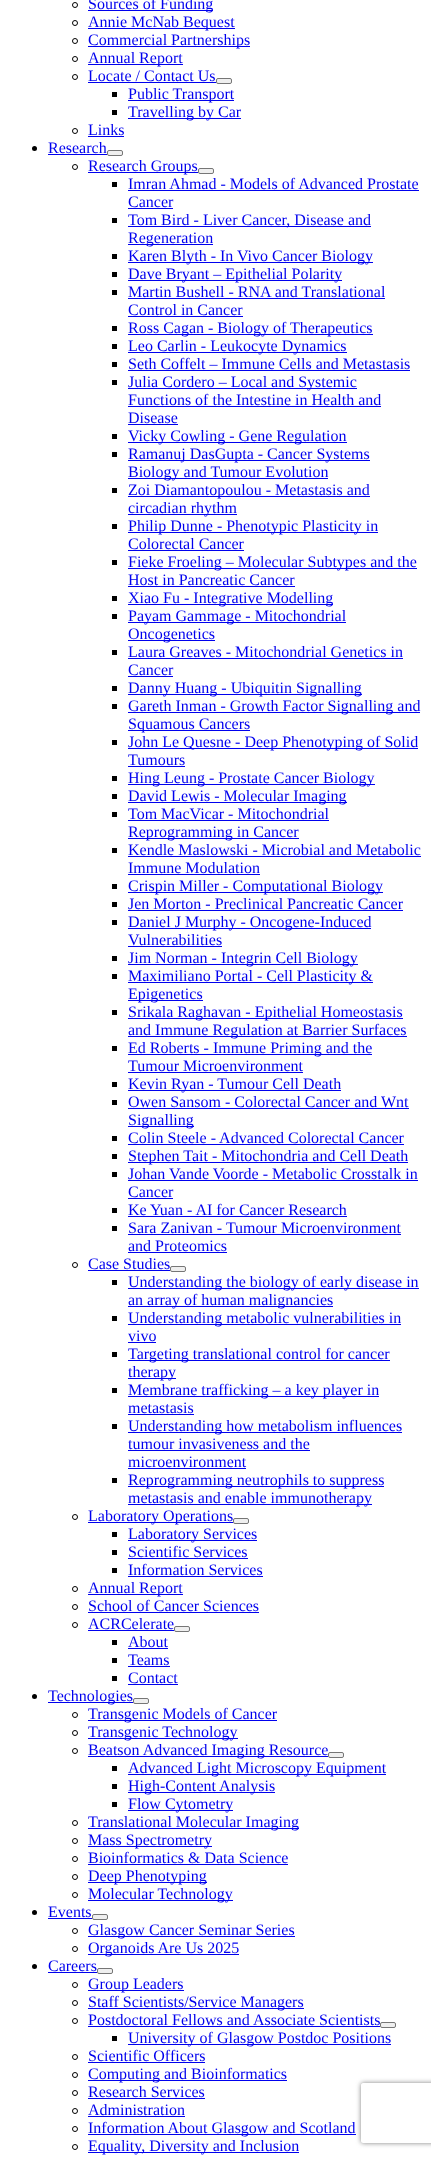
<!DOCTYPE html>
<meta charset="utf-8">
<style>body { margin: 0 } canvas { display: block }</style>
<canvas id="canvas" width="431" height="2157"></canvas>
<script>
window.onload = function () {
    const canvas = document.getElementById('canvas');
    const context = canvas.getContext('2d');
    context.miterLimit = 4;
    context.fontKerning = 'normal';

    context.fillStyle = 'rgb(255, 255, 255)';
    context.fillRect(0, 0, 431, 2157);
    context.beginPath();
    context.arc(75, 5, 2.5, 0, 2 * Math.PI);
    context.strokeStyle = 'rgb(0, 0, 0)';
    context.stroke();
    context.fillStyle = 'rgb(0, 0, 238)';
    context.fillRect(88, 10, 125, 1);
    context.beginPath();
    context.arc(75, 23, 2.5, 0, 2 * Math.PI);
    context.stroke();
    context.fillRect(88, 28, 147, 1);
    context.beginPath();
    context.arc(75, 41, 2.5, 0, 2 * Math.PI);
    context.stroke();
    context.fillRect(88, 46, 162, 1);
    context.beginPath();
    context.arc(75, 59, 2.5, 0, 2 * Math.PI);
    context.stroke();
    context.fillRect(88, 64, 95, 1);
    context.beginPath();
    context.arc(75, 77, 2.5, 0, 2 * Math.PI);
    context.stroke();
    context.fillRect(88, 82, 128, 1);
    context.fillStyle = 'rgb(239, 239, 239)';
    context.beginPath();
    context.roundRect(216.5, 78.5, 15, 5, 1.5);
    context.fill();
    context.strokeStyle = 'rgb(118, 118, 118)';
    context.stroke();
    context.fillStyle = 'rgb(0, 0, 0)';
    context.fillRect(112, 92, 5, 5);
    context.fillStyle = 'rgb(0, 0, 238)';
    context.fillRect(128, 100, 106, 1);
    context.fillStyle = 'rgb(0, 0, 0)';
    context.fillRect(112, 110, 5, 5);
    context.fillStyle = 'rgb(0, 0, 238)';
    context.fillRect(128, 118, 113, 1);
    context.beginPath();
    context.arc(75, 131, 2.5, 0, 2 * Math.PI);
    context.strokeStyle = 'rgb(0, 0, 0)';
    context.stroke();
    context.fillRect(88, 136, 36, 1);
    context.fillStyle = 'rgb(0, 0, 0)';
    context.beginPath();
    context.arc(34.5, 148.5, 2.5, 0, 2 * Math.PI);
    context.fill();
    context.fillStyle = 'rgb(0, 0, 238)';
    context.fillRect(48, 154, 59, 1);
    context.fillStyle = 'rgb(239, 239, 239)';
    context.beginPath();
    context.roundRect(107.5, 150.5, 15, 5, 1.5);
    context.fill();
    context.strokeStyle = 'rgb(118, 118, 118)';
    context.stroke();
    context.beginPath();
    context.arc(75, 167, 2.5, 0, 2 * Math.PI);
    context.strokeStyle = 'rgb(0, 0, 0)';
    context.stroke();
    context.fillStyle = 'rgb(0, 0, 238)';
    context.fillRect(88, 172, 110, 1);
    context.fillStyle = 'rgb(239, 239, 239)';
    context.beginPath();
    context.roundRect(198.5, 168.5, 15, 5, 1.5);
    context.fill();
    context.strokeStyle = 'rgb(118, 118, 118)';
    context.stroke();
    context.fillStyle = 'rgb(0, 0, 0)';
    context.fillRect(112, 182, 5, 5);
    context.fillStyle = 'rgb(0, 0, 238)';
    context.fillRect(128, 190, 291, 1);
    context.fillRect(128, 208, 45, 1);
    context.fillStyle = 'rgb(0, 0, 0)';
    context.fillRect(112, 218, 5, 5);
    context.fillStyle = 'rgb(0, 0, 238)';
    context.fillRect(128, 226, 243, 1);
    context.fillRect(128, 244, 85, 1);
    context.fillStyle = 'rgb(0, 0, 0)';
    context.fillRect(112, 254, 5, 5);
    context.fillStyle = 'rgb(0, 0, 238)';
    context.fillRect(128, 262, 245, 1);
    context.fillStyle = 'rgb(0, 0, 0)';
    context.fillRect(112, 272, 5, 5);
    context.fillStyle = 'rgb(0, 0, 238)';
    context.fillRect(128, 280, 214, 1);
    context.fillStyle = 'rgb(0, 0, 0)';
    context.fillRect(112, 290, 5, 5);
    context.fillStyle = 'rgb(0, 0, 238)';
    context.fillRect(128, 298, 257, 1);
    context.fillRect(128, 316, 115, 1);
    context.fillStyle = 'rgb(0, 0, 0)';
    context.fillRect(112, 326, 5, 5);
    context.fillStyle = 'rgb(0, 0, 238)';
    context.fillRect(128, 334, 245, 1);
    context.fillStyle = 'rgb(0, 0, 0)';
    context.fillRect(112, 344, 5, 5);
    context.fillStyle = 'rgb(0, 0, 238)';
    context.fillRect(128, 352, 219, 1);
    context.fillStyle = 'rgb(0, 0, 0)';
    context.fillRect(112, 362, 5, 5);
    context.fillStyle = 'rgb(0, 0, 238)';
    context.fillRect(128, 370, 282, 1);
    context.fillStyle = 'rgb(0, 0, 0)';
    context.fillRect(112, 380, 5, 5);
    context.fillStyle = 'rgb(0, 0, 238)';
    context.fillRect(128, 388, 229, 1);
    context.fillRect(128, 406, 253, 1);
    context.fillRect(128, 424, 50, 1);
    context.fillStyle = 'rgb(0, 0, 0)';
    context.fillRect(112, 434, 5, 5);
    context.fillStyle = 'rgb(0, 0, 238)';
    context.fillRect(128, 442, 219, 1);
    context.fillStyle = 'rgb(0, 0, 0)';
    context.fillRect(112, 452, 5, 5);
    context.fillStyle = 'rgb(0, 0, 238)';
    context.fillRect(128, 460, 242, 1);
    context.fillRect(128, 478, 200, 1);
    context.fillStyle = 'rgb(0, 0, 0)';
    context.fillRect(112, 488, 5, 5);
    context.fillStyle = 'rgb(0, 0, 238)';
    context.fillRect(128, 496, 242, 1);
    context.fillRect(128, 514, 109, 1);
    context.fillStyle = 'rgb(0, 0, 0)';
    context.fillRect(112, 524, 5, 5);
    context.fillStyle = 'rgb(0, 0, 238)';
    context.fillRect(128, 532, 250, 1);
    context.fillRect(128, 550, 116, 1);
    context.fillStyle = 'rgb(0, 0, 0)';
    context.fillRect(112, 560, 5, 5);
    context.fillStyle = 'rgb(0, 0, 238)';
    context.fillRect(128, 568, 289, 1);
    context.fillRect(128, 586, 167, 1);
    context.fillStyle = 'rgb(0, 0, 0)';
    context.fillRect(112, 596, 5, 5);
    context.fillStyle = 'rgb(0, 0, 238)';
    context.fillRect(128, 604, 205, 1);
    context.fillStyle = 'rgb(0, 0, 0)';
    context.fillRect(112, 614, 5, 5);
    context.fillStyle = 'rgb(0, 0, 238)';
    context.fillRect(128, 622, 218, 1);
    context.fillRect(128, 640, 87, 1);
    context.fillStyle = 'rgb(0, 0, 0)';
    context.fillRect(112, 650, 5, 5);
    context.fillStyle = 'rgb(0, 0, 238)';
    context.fillRect(128, 658, 275, 1);
    context.fillRect(128, 676, 45, 1);
    context.fillStyle = 'rgb(0, 0, 0)';
    context.fillRect(112, 686, 5, 5);
    context.fillStyle = 'rgb(0, 0, 238)';
    context.fillRect(128, 694, 234, 1);
    context.fillStyle = 'rgb(0, 0, 0)';
    context.fillRect(112, 704, 5, 5);
    context.fillStyle = 'rgb(0, 0, 238)';
    context.fillRect(128, 712, 292, 1);
    context.fillRect(128, 730, 122, 1);
    context.fillStyle = 'rgb(0, 0, 0)';
    context.fillRect(112, 740, 5, 5);
    context.fillStyle = 'rgb(0, 0, 238)';
    context.fillRect(128, 748, 290, 1);
    context.fillRect(128, 766, 57, 1);
    context.fillStyle = 'rgb(0, 0, 0)';
    context.fillRect(112, 776, 5, 5);
    context.fillStyle = 'rgb(0, 0, 238)';
    context.fillRect(128, 784, 247, 1);
    context.fillStyle = 'rgb(0, 0, 0)';
    context.fillRect(112, 794, 5, 5);
    context.fillStyle = 'rgb(0, 0, 238)';
    context.fillRect(128, 802, 219, 1);
    context.fillStyle = 'rgb(0, 0, 0)';
    context.fillRect(112, 812, 5, 5);
    context.fillStyle = 'rgb(0, 0, 238)';
    context.fillRect(128, 820, 201, 1);
    context.fillRect(128, 838, 171, 1);
    context.fillStyle = 'rgb(0, 0, 0)';
    context.fillRect(112, 848, 5, 5);
    context.fillStyle = 'rgb(0, 0, 238)';
    context.fillRect(128, 856, 293, 1);
    context.fillRect(128, 874, 132, 1);
    context.fillStyle = 'rgb(0, 0, 0)';
    context.fillRect(112, 884, 5, 5);
    context.fillStyle = 'rgb(0, 0, 238)';
    context.fillRect(128, 892, 255, 1);
    context.fillStyle = 'rgb(0, 0, 0)';
    context.fillRect(112, 902, 5, 5);
    context.fillStyle = 'rgb(0, 0, 238)';
    context.fillRect(128, 910, 275, 1);
    context.fillStyle = 'rgb(0, 0, 0)';
    context.fillRect(112, 920, 5, 5);
    context.fillStyle = 'rgb(0, 0, 238)';
    context.fillRect(128, 928, 243, 1);
    context.fillRect(128, 946, 94, 1);
    context.fillStyle = 'rgb(0, 0, 0)';
    context.fillRect(112, 956, 5, 5);
    context.fillStyle = 'rgb(0, 0, 238)';
    context.fillRect(128, 964, 230, 1);
    context.fillStyle = 'rgb(0, 0, 0)';
    context.fillRect(112, 974, 5, 5);
    context.fillStyle = 'rgb(0, 0, 238)';
    context.fillRect(128, 982, 245, 1);
    context.fillRect(128, 1000, 75, 1);
    context.fillStyle = 'rgb(0, 0, 0)';
    context.fillRect(112, 1010, 5, 5);
    context.fillStyle = 'rgb(0, 0, 238)';
    context.fillRect(128, 1018, 275, 1);
    context.fillRect(128, 1036, 279, 1);
    context.fillStyle = 'rgb(0, 0, 0)';
    context.fillRect(112, 1046, 5, 5);
    context.fillStyle = 'rgb(0, 0, 238)';
    context.fillRect(128, 1054, 244, 1);
    context.fillRect(128, 1072, 175, 1);
    context.fillStyle = 'rgb(0, 0, 0)';
    context.fillRect(112, 1082, 5, 5);
    context.fillStyle = 'rgb(0, 0, 238)';
    context.fillRect(128, 1090, 213, 1);
    context.fillStyle = 'rgb(0, 0, 0)';
    context.fillRect(112, 1100, 5, 5);
    context.fillStyle = 'rgb(0, 0, 238)';
    context.fillRect(128, 1108, 281, 1);
    context.fillRect(128, 1126, 66, 1);
    context.fillStyle = 'rgb(0, 0, 0)';
    context.fillRect(112, 1136, 5, 5);
    context.fillStyle = 'rgb(0, 0, 238)';
    context.fillRect(128, 1144, 276, 1);
    context.fillStyle = 'rgb(0, 0, 0)';
    context.fillRect(112, 1154, 5, 5);
    context.fillStyle = 'rgb(0, 0, 238)';
    context.fillRect(128, 1162, 280, 1);
    context.fillStyle = 'rgb(0, 0, 0)';
    context.fillRect(112, 1172, 5, 5);
    context.fillStyle = 'rgb(0, 0, 238)';
    context.fillRect(128, 1180, 290, 1);
    context.fillRect(128, 1198, 45, 1);
    context.fillStyle = 'rgb(0, 0, 0)';
    context.fillRect(112, 1208, 5, 5);
    context.fillStyle = 'rgb(0, 0, 238)';
    context.fillRect(128, 1216, 219, 1);
    context.fillStyle = 'rgb(0, 0, 0)';
    context.fillRect(112, 1226, 5, 5);
    context.fillStyle = 'rgb(0, 0, 238)';
    context.fillRect(128, 1234, 273, 1);
    context.fillRect(128, 1252, 99, 1);
    context.beginPath();
    context.arc(75, 1265, 2.5, 0, 2 * Math.PI);
    context.strokeStyle = 'rgb(0, 0, 0)';
    context.stroke();
    context.fillRect(88, 1270, 82, 1);
    context.fillStyle = 'rgb(239, 239, 239)';
    context.beginPath();
    context.roundRect(170.5, 1266.5, 15, 5, 1.5);
    context.fill();
    context.strokeStyle = 'rgb(118, 118, 118)';
    context.stroke();
    context.fillStyle = 'rgb(0, 0, 0)';
    context.fillRect(112, 1280, 5, 5);
    context.fillStyle = 'rgb(0, 0, 238)';
    context.fillRect(128, 1288, 291, 1);
    context.fillRect(128, 1306, 205, 1);
    context.fillStyle = 'rgb(0, 0, 0)';
    context.fillRect(112, 1316, 5, 5);
    context.fillStyle = 'rgb(0, 0, 238)';
    context.fillRect(128, 1324, 273, 1);
    context.fillRect(128, 1342, 28, 1);
    context.fillStyle = 'rgb(0, 0, 0)';
    context.fillRect(112, 1352, 5, 5);
    context.fillStyle = 'rgb(0, 0, 238)';
    context.fillRect(128, 1360, 262, 1);
    context.fillRect(128, 1378, 48, 1);
    context.fillStyle = 'rgb(0, 0, 0)';
    context.fillRect(112, 1388, 5, 5);
    context.fillStyle = 'rgb(0, 0, 238)';
    context.fillRect(128, 1396, 251, 1);
    context.fillRect(128, 1414, 66, 1);
    context.fillStyle = 'rgb(0, 0, 0)';
    context.fillRect(112, 1424, 5, 5);
    context.fillStyle = 'rgb(0, 0, 238)';
    context.fillRect(128, 1432, 274, 1);
    context.fillRect(128, 1450, 182, 1);
    context.fillRect(128, 1468, 118, 1);
    context.fillStyle = 'rgb(0, 0, 0)';
    context.fillRect(112, 1478, 5, 5);
    context.fillStyle = 'rgb(0, 0, 238)';
    context.fillRect(128, 1486, 256, 1);
    context.fillRect(128, 1504, 244, 1);
    context.beginPath();
    context.arc(75, 1517, 2.5, 0, 2 * Math.PI);
    context.strokeStyle = 'rgb(0, 0, 0)';
    context.stroke();
    context.fillRect(88, 1522, 145, 1);
    context.fillStyle = 'rgb(239, 239, 239)';
    context.beginPath();
    context.roundRect(233.5, 1518.5, 15, 5, 1.5);
    context.fill();
    context.strokeStyle = 'rgb(118, 118, 118)';
    context.stroke();
    context.fillStyle = 'rgb(0, 0, 0)';
    context.fillRect(112, 1532, 5, 5);
    context.fillStyle = 'rgb(0, 0, 238)';
    context.fillRect(128, 1540, 129, 1);
    context.fillStyle = 'rgb(0, 0, 0)';
    context.fillRect(112, 1550, 5, 5);
    context.fillStyle = 'rgb(0, 0, 238)';
    context.fillRect(128, 1558, 120, 1);
    context.fillStyle = 'rgb(0, 0, 0)';
    context.fillRect(112, 1568, 5, 5);
    context.fillStyle = 'rgb(0, 0, 238)';
    context.fillRect(128, 1576, 135, 1);
    context.beginPath();
    context.arc(75, 1589, 2.5, 0, 2 * Math.PI);
    context.strokeStyle = 'rgb(0, 0, 0)';
    context.stroke();
    context.fillRect(88, 1594, 95, 1);
    context.beginPath();
    context.arc(75, 1607, 2.5, 0, 2 * Math.PI);
    context.stroke();
    context.fillRect(88, 1612, 171, 1);
    context.beginPath();
    context.arc(75, 1625, 2.5, 0, 2 * Math.PI);
    context.stroke();
    context.fillRect(88, 1630, 86, 1);
    context.fillStyle = 'rgb(239, 239, 239)';
    context.beginPath();
    context.roundRect(174.5, 1626.5, 15, 5, 1.5);
    context.fill();
    context.strokeStyle = 'rgb(118, 118, 118)';
    context.stroke();
    context.fillStyle = 'rgb(0, 0, 0)';
    context.fillRect(112, 1640, 5, 5);
    context.fillStyle = 'rgb(0, 0, 238)';
    context.fillRect(128, 1648, 40, 1);
    context.fillStyle = 'rgb(0, 0, 0)';
    context.fillRect(112, 1658, 5, 5);
    context.fillStyle = 'rgb(0, 0, 238)';
    context.fillRect(128, 1666, 42, 1);
    context.fillStyle = 'rgb(0, 0, 0)';
    context.fillRect(112, 1676, 5, 5);
    context.fillStyle = 'rgb(0, 0, 238)';
    context.fillRect(128, 1684, 50, 1);
    context.fillStyle = 'rgb(0, 0, 0)';
    context.beginPath();
    context.arc(34.5, 1696.5, 2.5, 0, 2 * Math.PI);
    context.fill();
    context.fillStyle = 'rgb(0, 0, 238)';
    context.fillRect(48, 1702, 85, 1);
    context.fillStyle = 'rgb(239, 239, 239)';
    context.beginPath();
    context.roundRect(133.5, 1698.5, 15, 5, 1.5);
    context.fill();
    context.stroke();
    context.beginPath();
    context.arc(75, 1715, 2.5, 0, 2 * Math.PI);
    context.strokeStyle = 'rgb(0, 0, 0)';
    context.stroke();
    context.fillStyle = 'rgb(0, 0, 238)';
    context.fillRect(88, 1720, 189, 1);
    context.beginPath();
    context.arc(75, 1733, 2.5, 0, 2 * Math.PI);
    context.stroke();
    context.fillRect(88, 1738, 150, 1);
    context.beginPath();
    context.arc(75, 1751, 2.5, 0, 2 * Math.PI);
    context.stroke();
    context.fillRect(88, 1756, 240, 1);
    context.fillStyle = 'rgb(239, 239, 239)';
    context.beginPath();
    context.roundRect(328.5, 1752.5, 15, 5, 1.5);
    context.fill();
    context.strokeStyle = 'rgb(118, 118, 118)';
    context.stroke();
    context.fillStyle = 'rgb(0, 0, 0)';
    context.fillRect(112, 1766, 5, 5);
    context.fillStyle = 'rgb(0, 0, 238)';
    context.fillRect(128, 1774, 258, 1);
    context.fillStyle = 'rgb(0, 0, 0)';
    context.fillRect(112, 1784, 5, 5);
    context.fillStyle = 'rgb(0, 0, 238)';
    context.fillRect(128, 1792, 147, 1);
    context.fillStyle = 'rgb(0, 0, 0)';
    context.fillRect(112, 1802, 5, 5);
    context.fillStyle = 'rgb(0, 0, 238)';
    context.fillRect(128, 1810, 105, 1);
    context.beginPath();
    context.arc(75, 1823, 2.5, 0, 2 * Math.PI);
    context.strokeStyle = 'rgb(0, 0, 0)';
    context.stroke();
    context.fillRect(88, 1828, 211, 1);
    context.beginPath();
    context.arc(75, 1841, 2.5, 0, 2 * Math.PI);
    context.stroke();
    context.fillRect(88, 1846, 124, 1);
    context.beginPath();
    context.arc(75, 1859, 2.5, 0, 2 * Math.PI);
    context.stroke();
    context.fillRect(88, 1864, 200, 1);
    context.beginPath();
    context.arc(75, 1877, 2.5, 0, 2 * Math.PI);
    context.stroke();
    context.fillRect(88, 1882, 119, 1);
    context.beginPath();
    context.arc(75, 1895, 2.5, 0, 2 * Math.PI);
    context.stroke();
    context.fillRect(88, 1900, 145, 1);
    context.fillStyle = 'rgb(0, 0, 0)';
    context.beginPath();
    context.arc(34.5, 1912.5, 2.5, 0, 2 * Math.PI);
    context.fill();
    context.fillStyle = 'rgb(0, 0, 238)';
    context.fillRect(48, 1918, 44, 1);
    context.fillStyle = 'rgb(239, 239, 239)';
    context.beginPath();
    context.roundRect(92.5, 1914.5, 15, 5, 1.5);
    context.fill();
    context.strokeStyle = 'rgb(118, 118, 118)';
    context.stroke();
    context.beginPath();
    context.arc(75, 1931, 2.5, 0, 2 * Math.PI);
    context.strokeStyle = 'rgb(0, 0, 0)';
    context.stroke();
    context.fillStyle = 'rgb(0, 0, 238)';
    context.fillRect(88, 1936, 207, 1);
    context.beginPath();
    context.arc(75, 1949, 2.5, 0, 2 * Math.PI);
    context.stroke();
    context.fillRect(88, 1954, 151, 1);
    context.fillStyle = 'rgb(0, 0, 0)';
    context.beginPath();
    context.arc(34.5, 1966.5, 2.5, 0, 2 * Math.PI);
    context.fill();
    context.fillStyle = 'rgb(0, 0, 238)';
    context.fillRect(48, 1972, 49, 1);
    context.fillStyle = 'rgb(239, 239, 239)';
    context.beginPath();
    context.roundRect(97.5, 1968.5, 15, 5, 1.5);
    context.fill();
    context.strokeStyle = 'rgb(118, 118, 118)';
    context.stroke();
    context.beginPath();
    context.arc(75, 1985, 2.5, 0, 2 * Math.PI);
    context.strokeStyle = 'rgb(0, 0, 0)';
    context.stroke();
    context.fillStyle = 'rgb(0, 0, 238)';
    context.fillRect(88, 1990, 96, 1);
    context.beginPath();
    context.arc(75, 2003, 2.5, 0, 2 * Math.PI);
    context.stroke();
    context.fillRect(88, 2008, 216, 1);
    context.beginPath();
    context.arc(75, 2021, 2.5, 0, 2 * Math.PI);
    context.stroke();
    context.fillRect(88, 2026, 292, 1);
    context.fillStyle = 'rgb(239, 239, 239)';
    context.beginPath();
    context.roundRect(380.5, 2022.5, 15, 5, 1.5);
    context.fill();
    context.strokeStyle = 'rgb(118, 118, 118)';
    context.stroke();
    context.fillStyle = 'rgb(0, 0, 0)';
    context.fillRect(112, 2036, 5, 5);
    context.fillStyle = 'rgb(0, 0, 238)';
    context.fillRect(128, 2044, 263, 1);
    context.beginPath();
    context.arc(75, 2057, 2.5, 0, 2 * Math.PI);
    context.strokeStyle = 'rgb(0, 0, 0)';
    context.stroke();
    context.fillRect(88, 2062, 117, 1);
    context.beginPath();
    context.arc(75, 2075, 2.5, 0, 2 * Math.PI);
    context.stroke();
    context.fillRect(88, 2080, 199, 1);
    context.beginPath();
    context.arc(75, 2093, 2.5, 0, 2 * Math.PI);
    context.stroke();
    context.fillRect(88, 2098, 117, 1);
    context.beginPath();
    context.arc(75, 2111, 2.5, 0, 2 * Math.PI);
    context.stroke();
    context.fillRect(88, 2116, 97, 1);
    context.beginPath();
    context.arc(75, 2129, 2.5, 0, 2 * Math.PI);
    context.stroke();
    context.fillRect(88, 2134, 268, 1);
    context.beginPath();
    context.arc(75, 2147, 2.5, 0, 2 * Math.PI);
    context.stroke();
    context.fillRect(88, 2152, 211, 1);
    context.save();
    context.beginPath();
    context.moveTo(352, 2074);
    context.lineTo(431, 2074);
    context.lineTo(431, 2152);
    context.lineTo(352, 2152);
    context.closePath();
    context.moveTo(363, 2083);
    context.lineTo(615, 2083);
    context.bezierCurveTo(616, 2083, 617, 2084, 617, 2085);
    context.lineTo(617, 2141);
    context.bezierCurveTo(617, 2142, 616, 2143, 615, 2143);
    context.lineTo(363, 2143);
    context.bezierCurveTo(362, 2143, 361, 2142, 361, 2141);
    context.lineTo(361, 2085);
    context.bezierCurveTo(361, 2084, 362, 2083, 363, 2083);
    context.closePath();
    context.clip('evenodd');
    context.fillStyle = 'rgb(128, 128, 128)';
    context.filter = 'blur(2.5px)';
    context.beginPath();
    context.roundRect(361, 2083, 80, 60, 2);
    context.fill();
    context.filter = 'none';
    context.restore();
    context.font = '16px Liberation Serif';
    context.fillText('Sources of Funding', 88, 9);
    context.fillText('Annie McNab Bequest', 88, 27);
    context.fillText('Commercial Partnerships', 88, 45);
    context.fillText('Annual Report', 88, 63);
    context.fillText('Locate / Contact Us', 88, 81);
    context.fillText('Public Transport', 128, 99);
    context.fillText('Travelling by Car', 128, 117);
    context.fillText('Links', 88, 135);
    context.fillText('Research', 48, 153);
    context.fillText('Research Groups', 88, 171);
    context.fillText('Imran Ahmad - Models of Advanced Prostate', 128, 189);
    context.fillText('Cancer', 128, 207);
    context.fillText('Tom Bird - Liver Cancer, Disease and', 128, 225);
    context.fillText('Regeneration', 128, 243);
    context.fillText('Karen Blyth - In Vivo Cancer Biology', 128, 261);
    context.fillText('Dave Bryant – Epithelial Polarity', 128, 279);
    context.fillText('Martin Bushell - RNA and Translational', 128, 297);
    context.fillText('Control in Cancer', 128, 315);
    context.fillText('Ross Cagan - Biology of Therapeutics', 128, 333);
    context.fillText('Leo Carlin - Leukocyte Dynamics', 128, 351);
    context.fillText('Seth Coffelt – Immune Cells and Metastasis', 128, 369);
    context.fillText('Julia Cordero – Local and Systemic', 128, 387);
    context.fillText('Functions of the Intestine in Health and', 128, 405);
    context.fillText('Disease', 128, 423);
    context.fillText('Vicky Cowling - Gene Regulation', 128, 441);
    context.fillText('Ramanuj DasGupta - Cancer Systems', 128, 459);
    context.fillText('Biology and Tumour Evolution', 128, 477);
    context.fillText('Zoi Diamantopoulou - Metastasis and', 128, 495);
    context.fillText('circadian rhythm', 128, 513);
    context.fillText('Philip Dunne - Phenotypic Plasticity in', 128, 531);
    context.fillText('Colorectal Cancer', 128, 549);
    context.fillText('Fieke Froeling – Molecular Subtypes and the', 128, 567);
    context.fillText('Host in Pancreatic Cancer', 128, 585);
    context.fillText('Xiao Fu - Integrative Modelling', 128, 603);
    context.fillText('Payam Gammage - Mitochondrial', 128, 621);
    context.fillText('Oncogenetics', 128, 639);
    context.fillText('Laura Greaves - Mitochondrial Genetics in', 128, 657);
    context.fillText('Cancer', 128, 675);
    context.fillText('Danny Huang - Ubiquitin Signalling', 128, 693);
    context.fillText('Gareth Inman - Growth Factor Signalling and', 128, 711);
    context.fillText('Squamous Cancers', 128, 729);
    context.fillText('John Le Quesne - Deep Phenotyping of Solid', 128, 747);
    context.fillText('Tumours', 128, 765);
    context.fillText('Hing Leung - Prostate Cancer Biology', 128, 783);
    context.fillText('David Lewis - Molecular Imaging', 128, 801);
    context.fillText('Tom MacVicar - Mitochondrial', 128, 819);
    context.fillText('Reprogramming in Cancer', 128, 837);
    context.fillText('Kendle Maslowski - Microbial and Metabolic', 128, 855);
    context.fillText('Immune Modulation', 128, 873);
    context.fillText('Crispin Miller - Computational Biology', 128, 891);
    context.fillText('Jen Morton - Preclinical Pancreatic Cancer', 128, 909);
    context.fillText('Daniel J Murphy - Oncogene-Induced', 128, 927);
    context.fillText('Vulnerabilities', 128, 945);
    context.fillText('Jim Norman - Integrin Cell Biology', 128, 963);
    context.fillText('Maximiliano Portal - Cell Plasticity &', 128, 981);
    context.fillText('Epigenetics', 128, 999);
    context.fillText('Srikala Raghavan - Epithelial Homeostasis', 128, 1017);
    context.fillText('and Immune Regulation at Barrier Surfaces', 128, 1035);
    context.fillText('Ed Roberts - Immune Priming and the', 128, 1053);
    context.fillText('Tumour Microenvironment', 128, 1071);
    context.fillText('Kevin Ryan - Tumour Cell Death', 128, 1089);
    context.fillText('Owen Sansom - Colorectal Cancer and Wnt', 128, 1107);
    context.fillText('Signalling', 128, 1125);
    context.fillText('Colin Steele - Advanced Colorectal Cancer', 128, 1143);
    context.fillText('Stephen Tait - Mitochondria and Cell Death', 128, 1161);
    context.fillText('Johan Vande Voorde - Metabolic Crosstalk in', 128, 1179);
    context.fillText('Cancer', 128, 1197);
    context.fillText('Ke Yuan - AI for Cancer Research', 128, 1215);
    context.fillText('Sara Zanivan - Tumour Microenvironment', 128, 1233);
    context.fillText('and Proteomics', 128, 1251);
    context.fillText('Case Studies', 88, 1269);
    context.fillText('Understanding the biology of early disease in', 128, 1287);
    context.fillText('an array of human malignancies', 128, 1305);
    context.fillText('Understanding metabolic vulnerabilities in', 128, 1323);
    context.fillText('vivo', 128, 1341);
    context.fillText('Targeting translational control for cancer', 128, 1359);
    context.fillText('therapy', 128, 1377);
    context.fillText('Membrane trafficking – a key player in', 128, 1395);
    context.fillText('metastasis', 128, 1413);
    context.fillText('Understanding how metabolism influences', 128, 1431);
    context.fillText('tumour invasiveness and the', 128, 1449);
    context.fillText('microenvironment', 128, 1467);
    context.fillText('Reprogramming neutrophils to suppress', 128, 1485);
    context.fillText('metastasis and enable immunotherapy', 128, 1503);
    context.fillText('Laboratory Operations', 88, 1521);
    context.fillText('Laboratory Services', 128, 1539);
    context.fillText('Scientific Services', 128, 1557);
    context.fillText('Information Services', 128, 1575);
    context.fillText('Annual Report', 88, 1593);
    context.fillText('School of Cancer Sciences', 88, 1611);
    context.fillText('ACRCelerate', 88, 1629);
    context.fillText('About', 128, 1647);
    context.fillText('Teams', 128, 1665);
    context.fillText('Contact', 128, 1683);
    context.fillText('Technologies', 48, 1701);
    context.fillText('Transgenic Models of Cancer', 88, 1719);
    context.fillText('Transgenic Technology', 88, 1737);
    context.fillText('Beatson Advanced Imaging Resource', 88, 1755);
    context.fillText('Advanced Light Microscopy Equipment', 128, 1773);
    context.fillText('High-Content Analysis', 128, 1791);
    context.fillText('Flow Cytometry', 128, 1809);
    context.fillText('Translational Molecular Imaging', 88, 1827);
    context.fillText('Mass Spectrometry', 88, 1845);
    context.fillText('Bioinformatics & Data Science', 88, 1863);
    context.fillText('Deep Phenotyping', 88, 1881);
    context.fillText('Molecular Technology', 88, 1899);
    context.fillText('Events', 48, 1917);
    context.fillText('Glasgow Cancer Seminar Series', 88, 1935);
    context.fillText('Organoids Are Us 2025', 88, 1953);
    context.fillText('Careers', 48, 1971);
    context.fillText('Group Leaders', 88, 1989);
    context.fillText('Staff Scientists/Service Managers', 88, 2007);
    context.fillText('Postdoctoral Fellows and Associate Scientists', 88, 2025);
    context.fillText('University of Glasgow Postdoc Positions', 128, 2043);
    context.fillText('Scientific Officers', 88, 2061);
    context.fillText('Computing and Bioinformatics', 88, 2079);
    context.fillText('Research Services', 88, 2097);
    context.fillText('Administration', 88, 2115);
    context.fillText('Information About Glasgow and Scotland', 88, 2133);
    context.fillText('Equality, Diversity and Inclusion', 88, 2151);
};
</script>
